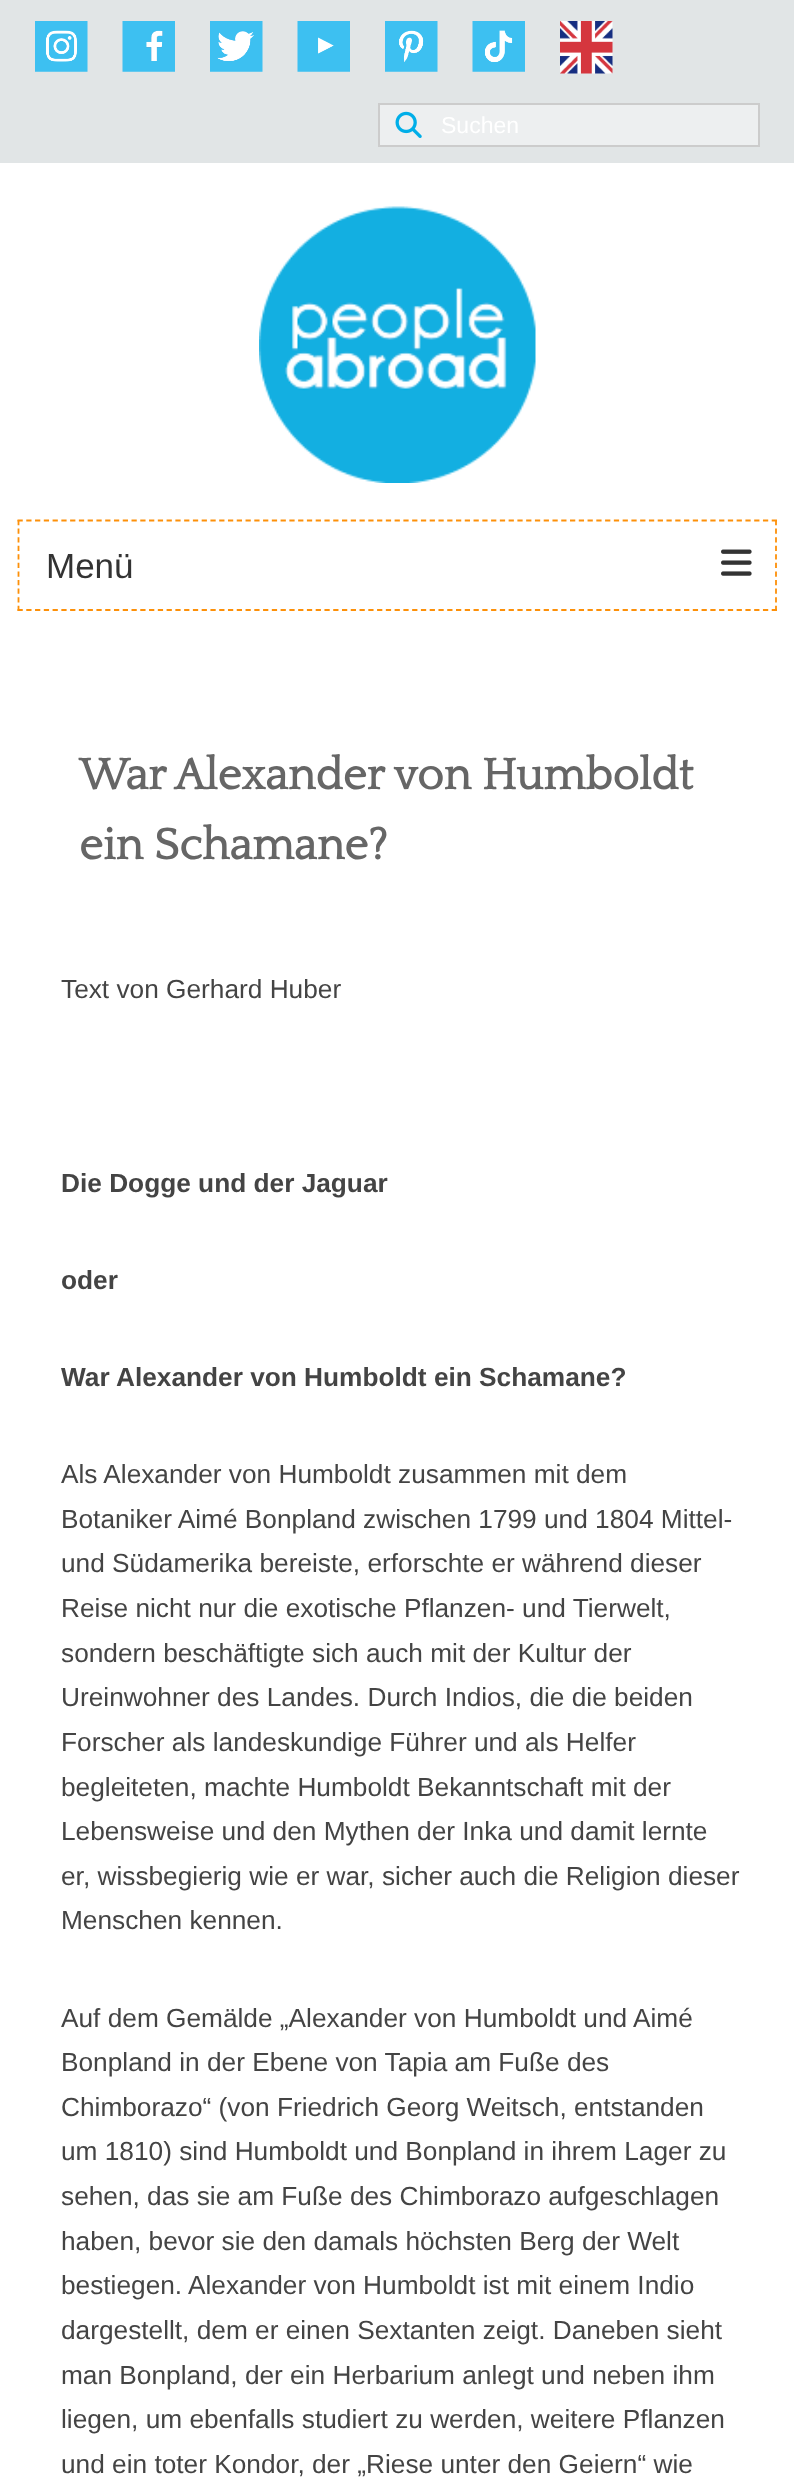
<!DOCTYPE html>
<meta charset="utf-8">
<style>body { margin: 0 } canvas { display: block }</style>
<canvas id="canvas" width="794" height="2484"></canvas>
<img id="img1" src="images/1.png" hidden>
<img id="img2" src="images/2.png" hidden>
<img id="img3" src="images/3.png" hidden>
<img id="img4" src="images/4.png" hidden>
<img id="img5" src="images/5.png" hidden>
<img id="img6" src="images/6.png" hidden>
<img id="img7" src="images/7.png" hidden>
<img id="img8" src="images/8.png" hidden>
<img id="img9" src="images/9.png" hidden>
<img id="img10" src="images/10.png" hidden>
<script>
window.onload = function () {
    const canvas = document.getElementById('canvas');
    const context = canvas.getContext('2d');
    context.miterLimit = 4;
    context.fontKerning = 'normal';

    context.fillStyle = 'rgb(255, 255, 255)';
    context.fillRect(0, 0, 794, 2484);
    context.fillStyle = 'rgb(225, 229, 230)';
    context.fillRect(0, 0, 794, 163);
    context.drawImage(document.getElementById('img1'), 35, 21, 53, 51);
    context.drawImage(document.getElementById('img2'), 122, 21, 53, 51);
    context.drawImage(document.getElementById('img3'), 210, 21, 53, 51);
    context.drawImage(document.getElementById('img4'), 297, 21, 53, 51);
    context.drawImage(document.getElementById('img5'), 385, 21, 53, 51);
    context.drawImage(document.getElementById('img6'), 472, 21, 53, 51);
    context.drawImage(document.getElementById('img7'), 560, 21, 53, 53);
    context.fillStyle = 'rgb(237, 239, 240)';
    context.beginPath();
    context.rect(379, 104, 380, 42);
    context.fill();
    context.strokeStyle = 'rgb(204, 204, 204)';
    context.lineWidth = 2;
    context.stroke();
    context.drawImage(document.getElementById('img8'), 395, 111, 27, 27);
    context.drawImage(document.getElementById('img9'), 259, 206, 277, 277);
    context.beginPath();
    context.moveTo(17.5, 520.5);
    context.lineTo(777, 520.5);
    context.strokeStyle = 'rgb(253, 144, 9)';
    context.lineWidth = 1.8;
    context.setLineDash([5.25, 3.52]);
    context.stroke();
    context.beginPath();
    context.moveTo(776, 520);
    context.lineTo(776, 611);
    context.setLineDash([5.25, 3.32]);
    context.stroke();
    context.beginPath();
    context.moveTo(17.5, 610);
    context.lineTo(777, 610);
    context.setLineDash([5.25, 3.52]);
    context.stroke();
    context.beginPath();
    context.moveTo(18.5, 520);
    context.lineTo(18.5, 611);
    context.setLineDash([5.25, 3.32]);
    context.stroke();
    context.drawImage(document.getElementById('img10'), 721, 549, 31, 27);
    context.font = '23px Liberation Sans';
    context.fillStyle = 'rgb(255, 255, 255)';
    context.fillText('Suchen', 441, 133);
    context.font = '35px Liberation Sans';
    context.fillStyle = 'rgb(51, 51, 51)';
    context.fillText('Menü', 46, 578);
    context.font = 'bold 45.5px Quattrocento';
    context.fillStyle = 'rgb(102, 102, 102)';
    context.fillText('War Alexander von Humboldt', 79, 789);
    context.fillText('ein Schamane?', 79, 859);
    context.font = '26.25px Liberation Sans';
    context.fillStyle = 'rgb(68, 68, 68)';
    context.fillText('Text von Gerhard Huber', 61, 998);
    context.font = 'bold 26.25px Liberation Sans';
    context.fillText('Die Dogge und der Jaguar', 61, 1192);
    context.fillText('oder', 61, 1289);
    context.fillText('War Alexander von Humboldt ein Schamane?', 61, 1386);
    context.font = '26.25px Liberation Sans';
    context.fillText('Als Alexander von Humboldt zusammen mit dem', 61, 1483);
    context.fillText('Botaniker Aimé Bonpland zwischen 1799 und 1804 Mittel-', 61, 1528);
    context.fillText('und Südamerika bereiste, erforschte er während dieser', 61, 1572);
    context.fillText('Reise nicht nur die exotische Pflanzen- und Tierwelt,', 61, 1617);
    context.fillText('sondern beschäftigte sich auch mit der Kultur der', 61, 1662);
    context.fillText('Ureinwohner des Landes. Durch Indios, die die beiden', 61, 1706);
    context.fillText('Forscher als landeskundige Führer und als Helfer', 61, 1751);
    context.fillText('begleiteten, machte Humboldt Bekanntschaft mit der', 61, 1796);
    context.fillText('Lebensweise und den Mythen der Inka und damit lernte', 61, 1840);
    context.fillText('er, wissbegierig wie er war, sicher auch die Religion dieser', 61, 1885);
    context.fillText('Menschen kennen.', 61, 1929);
    context.fillText('Auf dem Gemälde „Alexander von Humboldt und Aimé', 61, 2027);
    context.fillText('Bonpland in der Ebene von Tapia am Fuße des', 61, 2071);
    context.fillText('Chimborazo“ (von Friedrich Georg Weitsch, entstanden', 61, 2116);
    context.fillText('um 1810) sind Humboldt und Bonpland in ihrem Lager zu', 61, 2160);
    context.fillText('sehen, das sie am Fuße des Chimborazo aufgeschlagen', 61, 2205);
    context.fillText('haben, bevor sie den damals höchsten Berg der Welt', 61, 2250);
    context.fillText('bestiegen. Alexander von Humboldt ist mit einem Indio', 61, 2294);
    context.fillText('dargestellt, dem er einen Sextanten zeigt. Daneben sieht', 61, 2339);
    context.fillText('man Bonpland, der ein Herbarium anlegt und neben ihm', 61, 2384);
    context.fillText('liegen, um ebenfalls studiert zu werden, weitere Pflanzen', 61, 2428);
    context.fillText('und ein toter Kondor, der „Riese unter den Geiern“ wie', 61, 2473);
};
</script>
